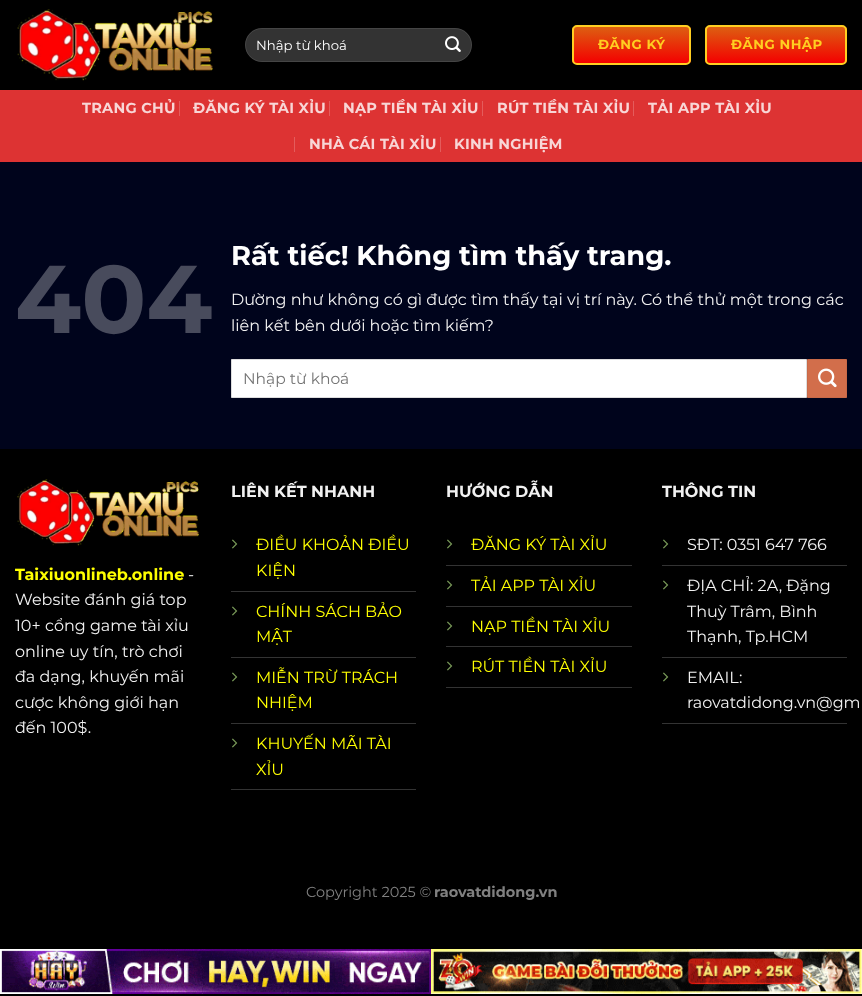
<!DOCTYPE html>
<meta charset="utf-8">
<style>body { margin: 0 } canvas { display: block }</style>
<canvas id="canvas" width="862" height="996"></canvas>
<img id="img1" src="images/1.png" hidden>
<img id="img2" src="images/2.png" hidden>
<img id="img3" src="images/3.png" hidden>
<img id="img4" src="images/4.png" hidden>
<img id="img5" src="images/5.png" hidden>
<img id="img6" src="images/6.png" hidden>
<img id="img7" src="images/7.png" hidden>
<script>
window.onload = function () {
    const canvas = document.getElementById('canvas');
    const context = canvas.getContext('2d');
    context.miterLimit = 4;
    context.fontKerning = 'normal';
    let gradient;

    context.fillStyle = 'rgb(0, 0, 0)';
    context.fillRect(0, 0, 862, 996);
    context.drawImage(document.getElementById('img1'), 17, 9, 196, 72);
    context.fillStyle = 'rgb(51, 51, 51)';
    context.beginPath();
    context.roundRect(245, 28, 227, 34, 17);
    context.fill();
    context.beginPath();
    context.roundRect(245.5, 28.5, 226, 33, 16.5);
    context.strokeStyle = 'rgba(255, 255, 255, 0.09)';
    context.stroke();
    context.drawImage(document.getElementById('img2'), 445, 36, 16, 16);
    context.save();
    context.beginPath();
    context.roundRect(572, 25, 119, 40, 5);
    context.clip();
    gradient = context.createLinearGradient(632, 63, 632, 27);
    gradient.addColorStop(0, 'rgb(244, 0, 0)');
    gradient.addColorStop(1, 'rgb(221, 95, 17)');
    context.fillStyle = gradient;
    context.fillRect(572, 27, 119, 36);
    context.restore();
    context.beginPath();
    context.roundRect(573, 26, 117, 38, 4);
    context.strokeStyle = 'rgb(255, 206, 33)';
    context.lineWidth = 2;
    context.stroke();
    context.save();
    context.beginPath();
    context.roundRect(705, 25, 142, 40, 5);
    context.clip();
    gradient = context.createLinearGradient(776, 63, 776, 27);
    gradient.addColorStop(0, 'rgb(244, 0, 0)');
    gradient.addColorStop(1, 'rgb(221, 95, 17)');
    context.fillStyle = gradient;
    context.fillRect(705, 27, 142, 36);
    context.restore();
    context.beginPath();
    context.roundRect(706, 26, 140, 38, 4);
    context.stroke();
    context.fillStyle = 'rgb(221, 51, 51)';
    context.fillRect(0, 90, 862, 72);
    context.fillStyle = 'rgb(228, 92, 92)';
    context.fillRect(179, 101, 1, 15);
    context.fillRect(329, 101, 1, 15);
    context.fillRect(482, 101, 1, 15);
    context.fillRect(633, 101, 1, 15);
    context.fillRect(294, 137, 1, 15);
    context.fillRect(440, 137, 1, 15);
    context.fillStyle = 'rgb(0, 4, 28)';
    context.fillRect(0, 162, 862, 287);
    context.fillStyle = 'rgb(255, 255, 255)';
    context.beginPath();
    context.rect(231.5, 359.5, 575, 38);
    context.fill();
    context.strokeStyle = 'rgb(221, 221, 221)';
    context.lineWidth = 1;
    context.stroke();
    context.fillStyle = 'rgb(210, 110, 75)';
    context.beginPath();
    context.rect(807.5, 359.5, 39, 38);
    context.fill();
    context.strokeStyle = 'rgb(200, 105, 71)';
    context.stroke();
    context.drawImage(document.getElementById('img3'), 818, 368, 19, 20);
    context.drawImage(document.getElementById('img4'), 17, 479, 182, 67);
    context.fillStyle = 'rgb(51, 51, 51)';
    context.fillRect(231, 591, 185, 1);
    context.drawImage(document.getElementById('img5'), 232, 539, 6, 10);
    context.fillRect(231, 657, 185, 1);
    context.drawImage(document.getElementById('img5'), 232, 606, 6, 10);
    context.fillRect(231, 723, 185, 1);
    context.drawImage(document.getElementById('img5'), 232, 672, 6, 10);
    context.fillRect(231, 789, 185, 1);
    context.drawImage(document.getElementById('img5'), 232, 738, 6, 10);
    context.fillRect(446, 565, 186, 1);
    context.drawImage(document.getElementById('img5'), 447, 539, 6, 10);
    context.fillRect(446, 606, 186, 1);
    context.drawImage(document.getElementById('img5'), 447, 580, 6, 10);
    context.fillRect(446, 646, 186, 1);
    context.drawImage(document.getElementById('img5'), 447, 621, 6, 10);
    context.fillRect(446, 687, 186, 1);
    context.drawImage(document.getElementById('img5'), 447, 661, 6, 10);
    context.fillRect(662, 565, 185, 1);
    context.drawImage(document.getElementById('img5'), 663, 539, 6, 10);
    context.fillRect(662, 657, 185, 1);
    context.drawImage(document.getElementById('img5'), 663, 580, 6, 10);
    context.fillRect(662, 723, 185, 1);
    context.drawImage(document.getElementById('img5'), 663, 672, 6, 10);
    context.drawImage(document.getElementById('img6'), 0, 949, 431, 45);
    context.drawImage(document.getElementById('img7'), 431, 949, 431, 45);
    context.font = '13.25px Montserrat';
    context.fillStyle = 'rgb(255, 255, 255)';
    context.fillText('Nhập từ khoá', 256, 50);
    context.letterSpacing = '0.5px';
    context.font = 'bold 13.25px Montserrat';
    context.fillStyle = 'rgb(255, 206, 33)';
    context.fillText('ĐĂNG KÝ', 598, 49);
    context.fillText('ĐĂNG NHẬP', 731, 49);
    context.letterSpacing = '0.25px';
    context.font = 'bold 14.5px Montserrat';
    context.fillStyle = 'rgb(248, 214, 214)';
    context.fillText('TRANG CHỦ', 82, 113);
    context.fillText('ĐĂNG KÝ TÀI XỈU', 193, 113);
    context.fillText('NẠP TIỀN TÀI XỈU', 343, 113);
    context.fillText('RÚT TIỀN TÀI XỈU', 497, 113);
    context.fillText('TẢI APP TÀI XỈU', 648, 113);
    context.fillText('NHÀ CÁI TÀI XỈU', 309, 149);
    context.fillText('KINH NGHIỆM', 454, 149);
    context.letterSpacing = '0px';
    context.font = 'bold 96px Montserrat';
    context.fillStyle = 'rgb(72, 75, 92)';
    context.fillText('404', 15, 333);
    context.font = 'bold 27.25px Montserrat';
    context.fillStyle = 'rgb(255, 255, 255)';
    context.fillText('Rất tiếc! Không tìm thấy trang.', 231, 265);
    context.font = '16px Montserrat';
    context.fillStyle = 'rgb(241, 241, 241)';
    context.fillText('Dường như không có gì được tìm thấy tại vị trí này. Có thể thử một trong các', 231, 305);
    context.fillText('liên kết bên dưới hoặc tìm kiếm?', 231, 331);
    context.font = '15.5px Montserrat';
    context.fillStyle = 'rgb(117, 117, 117)';
    context.fillText('Nhập từ khoá', 243, 384);
    context.font = 'bold 16px Montserrat';
    context.fillStyle = 'rgb(255, 255, 0)';
    context.fillText('Taixiuonlineb.online', 15, 580);
    context.font = '16px Montserrat';
    context.fillStyle = 'rgb(241, 241, 241)';
    context.fillText('-', 188, 580);
    context.fillText('Website đánh giá top', 15, 605);
    context.fillText('10+ cổng game tài xỉu', 15, 631);
    context.fillText('online uy tín, trò chơi', 15, 657);
    context.fillText('đa dạng, khuyến mãi', 15, 682);
    context.fillText('cược không giới hạn', 15, 708);
    context.fillText('đến 100$.', 15, 733);
    context.font = 'bold 16px Montserrat';
    context.fillText('LIÊN KẾT NHANH', 231, 497);
    context.font = '16px Montserrat';
    context.fillStyle = 'rgb(255, 255, 0)';
    context.fillText('ĐIỀU KHOẢN ĐIỀU', 256, 550);
    context.fillText('KIỆN', 256, 576);
    context.fillText('CHÍNH SÁCH BẢO', 256, 617);
    context.fillText('MẬT', 256, 642);
    context.fillText('MIỄN TRỪ TRÁCH', 256, 683);
    context.fillText('NHIỆM', 256, 708);
    context.fillText('KHUYẾN MÃI TÀI', 256, 749);
    context.fillText('XỈU', 256, 775);
    context.font = 'bold 16px Montserrat';
    context.fillStyle = 'rgb(241, 241, 241)';
    context.fillText('HƯỚNG DẪN', 446, 497);
    context.font = '16px Montserrat';
    context.fillStyle = 'rgb(255, 255, 0)';
    context.fillText('ĐĂNG KÝ TÀI XỈU', 471, 550);
    context.fillText('TẢI APP TÀI XỈU', 471, 591);
    context.fillText('NẠP TIỀN TÀI XỈU', 471, 632);
    context.fillText('RÚT TIỀN TÀI XỈU', 471, 672);
    context.font = 'bold 16px Montserrat';
    context.fillStyle = 'rgb(241, 241, 241)';
    context.fillText('THÔNG TIN', 662, 497);
    context.font = '16px Montserrat';
    context.fillText('SĐT: 0351 647 766', 687, 550);
    context.fillText('ĐỊA CHỈ: 2A, Đặng', 687, 591);
    context.fillText('Thuỳ Trâm, Bình', 687, 617);
    context.fillText('Thạnh, Tp.HCM', 687, 642);
    context.fillText('EMAIL:', 687, 683);
    context.fillText('raovatdidong.vn@gm', 687, 708);
    context.font = '14.5px Montserrat';
    context.fillStyle = 'rgb(128, 128, 128)';
    context.fillText('Copyright 2025 ©', 306, 897);
    context.font = 'bold 14.5px Montserrat';
    context.fillText('raovatdidong.vn', 434, 897);
};
</script>
